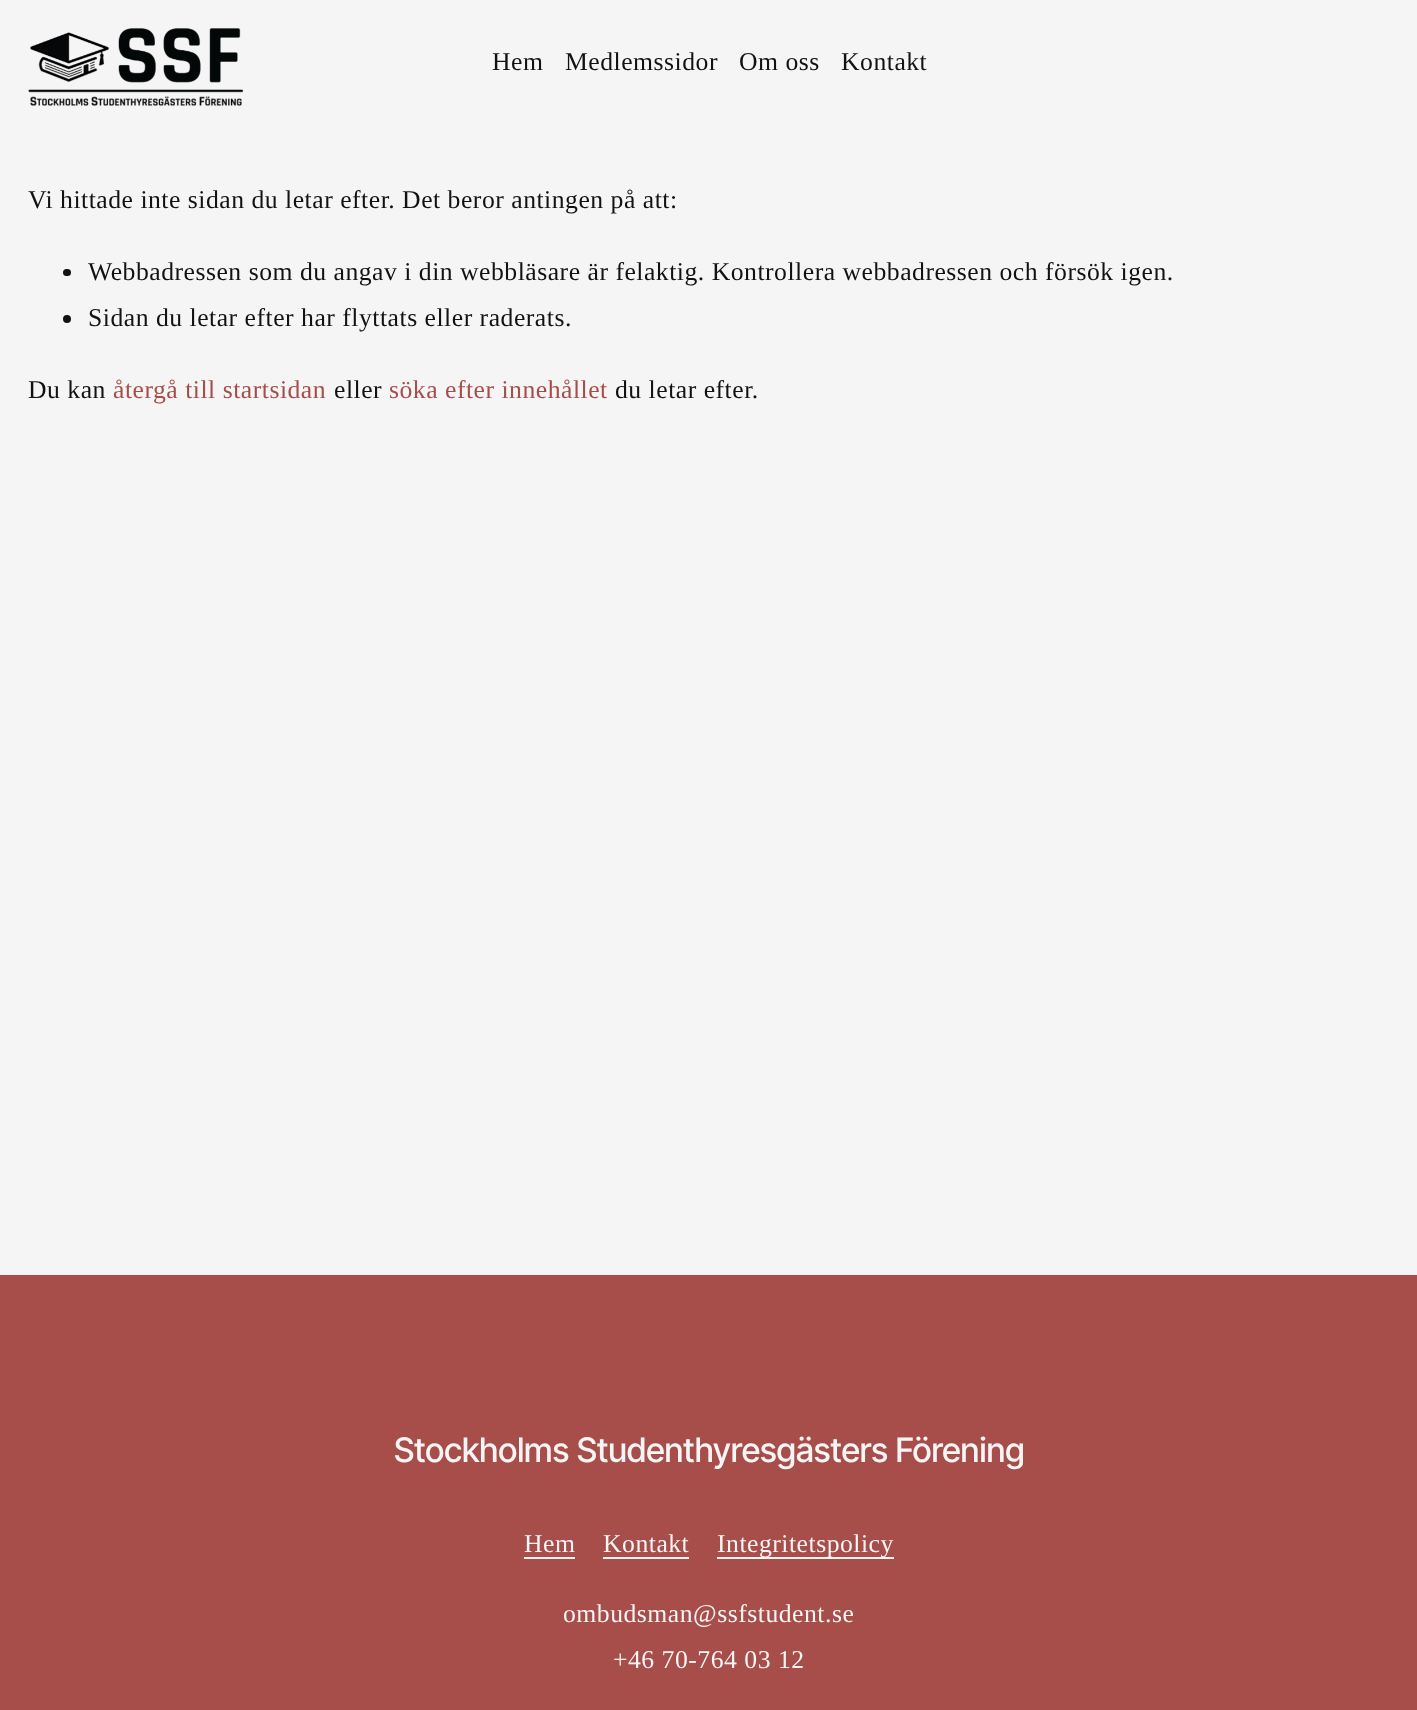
<!DOCTYPE html>
<meta charset="utf-8">
<style>body { margin: 0 } canvas { display: block }</style>
<canvas id="canvas" width="1417" height="1710"></canvas>
<img id="img1" src="images/1.png" hidden>
<script>
window.onload = function () {
    const canvas = document.getElementById('canvas');
    const context = canvas.getContext('2d');
    context.miterLimit = 4;
    context.fontKerning = 'normal';

    context.fillStyle = 'rgb(245, 245, 245)';
    context.fillRect(0, 0, 1417, 1710);
    context.drawImage(document.getElementById('img1'), 28, 28, 216, 78);
    context.fillStyle = 'rgb(18, 18, 18)';
    context.beginPath();
    context.roundRect(63, 269, 8, 7, 3.5);
    context.fill();
    context.beginPath();
    context.arc(67, 319, 4, 0, 2 * Math.PI);
    context.fill();
    context.fillStyle = 'rgb(167, 77, 74)';
    context.fillRect(0, 1275, 1417, 435);
    context.fillStyle = 'rgb(245, 245, 245)';
    context.fillRect(524, 1557, 51, 2);
    context.fillRect(603, 1557, 86, 2);
    context.fillRect(717, 1557, 177, 2);
    context.letterSpacing = '0.5px';
    context.font = '25.7px Liberation Serif';
    context.fillStyle = 'rgb(18, 18, 18)';
    context.fillText('Hem', 492, 70);
    context.fillText('Medlemssidor', 565, 70);
    context.fillText('Om oss', 739, 70);
    context.fillText('Kontakt', 841, 70);
    context.fillText('Vi hittade inte sidan du letar efter. Det beror antingen på att:', 28, 208);
    context.fillText('Webbadressen som du angav i din webbläsare är felaktig. Kontrollera webbadressen och försök igen.', 88, 280);
    context.fillText('Sidan du letar efter har flyttats eller raderats.', 88, 326);
    context.fillText('Du kan', 28, 398);
    context.fillStyle = 'rgb(167, 77, 74)';
    context.fillText('återgå till startsidan', 113, 398);
    context.fillStyle = 'rgb(18, 18, 18)';
    context.fillText('eller', 334, 398);
    context.fillStyle = 'rgb(167, 77, 74)';
    context.fillText('söka efter innehållet', 389, 398);
    context.fillStyle = 'rgb(18, 18, 18)';
    context.fillText('du letar efter.', 615, 398);
    context.letterSpacing = '0px';
    context.font = '500 33.75px Inter Tight';
    context.fillStyle = 'rgb(245, 245, 245)';
    context.fillText('Stockholms Studenthyresgästers Förening', 394, 1462);
    context.letterSpacing = '0.5px';
    context.font = '25.7px Liberation Serif';
    context.fillText('Hem', 524, 1552);
    context.fillText('Kontakt', 603, 1552);
    context.fillText('Integritetspolicy', 717, 1552);
    context.fillText('ombudsman@ssfstudent.se', 563, 1622);
    context.fillText('+46 70-764 03 12', 613, 1668);
};
</script>
